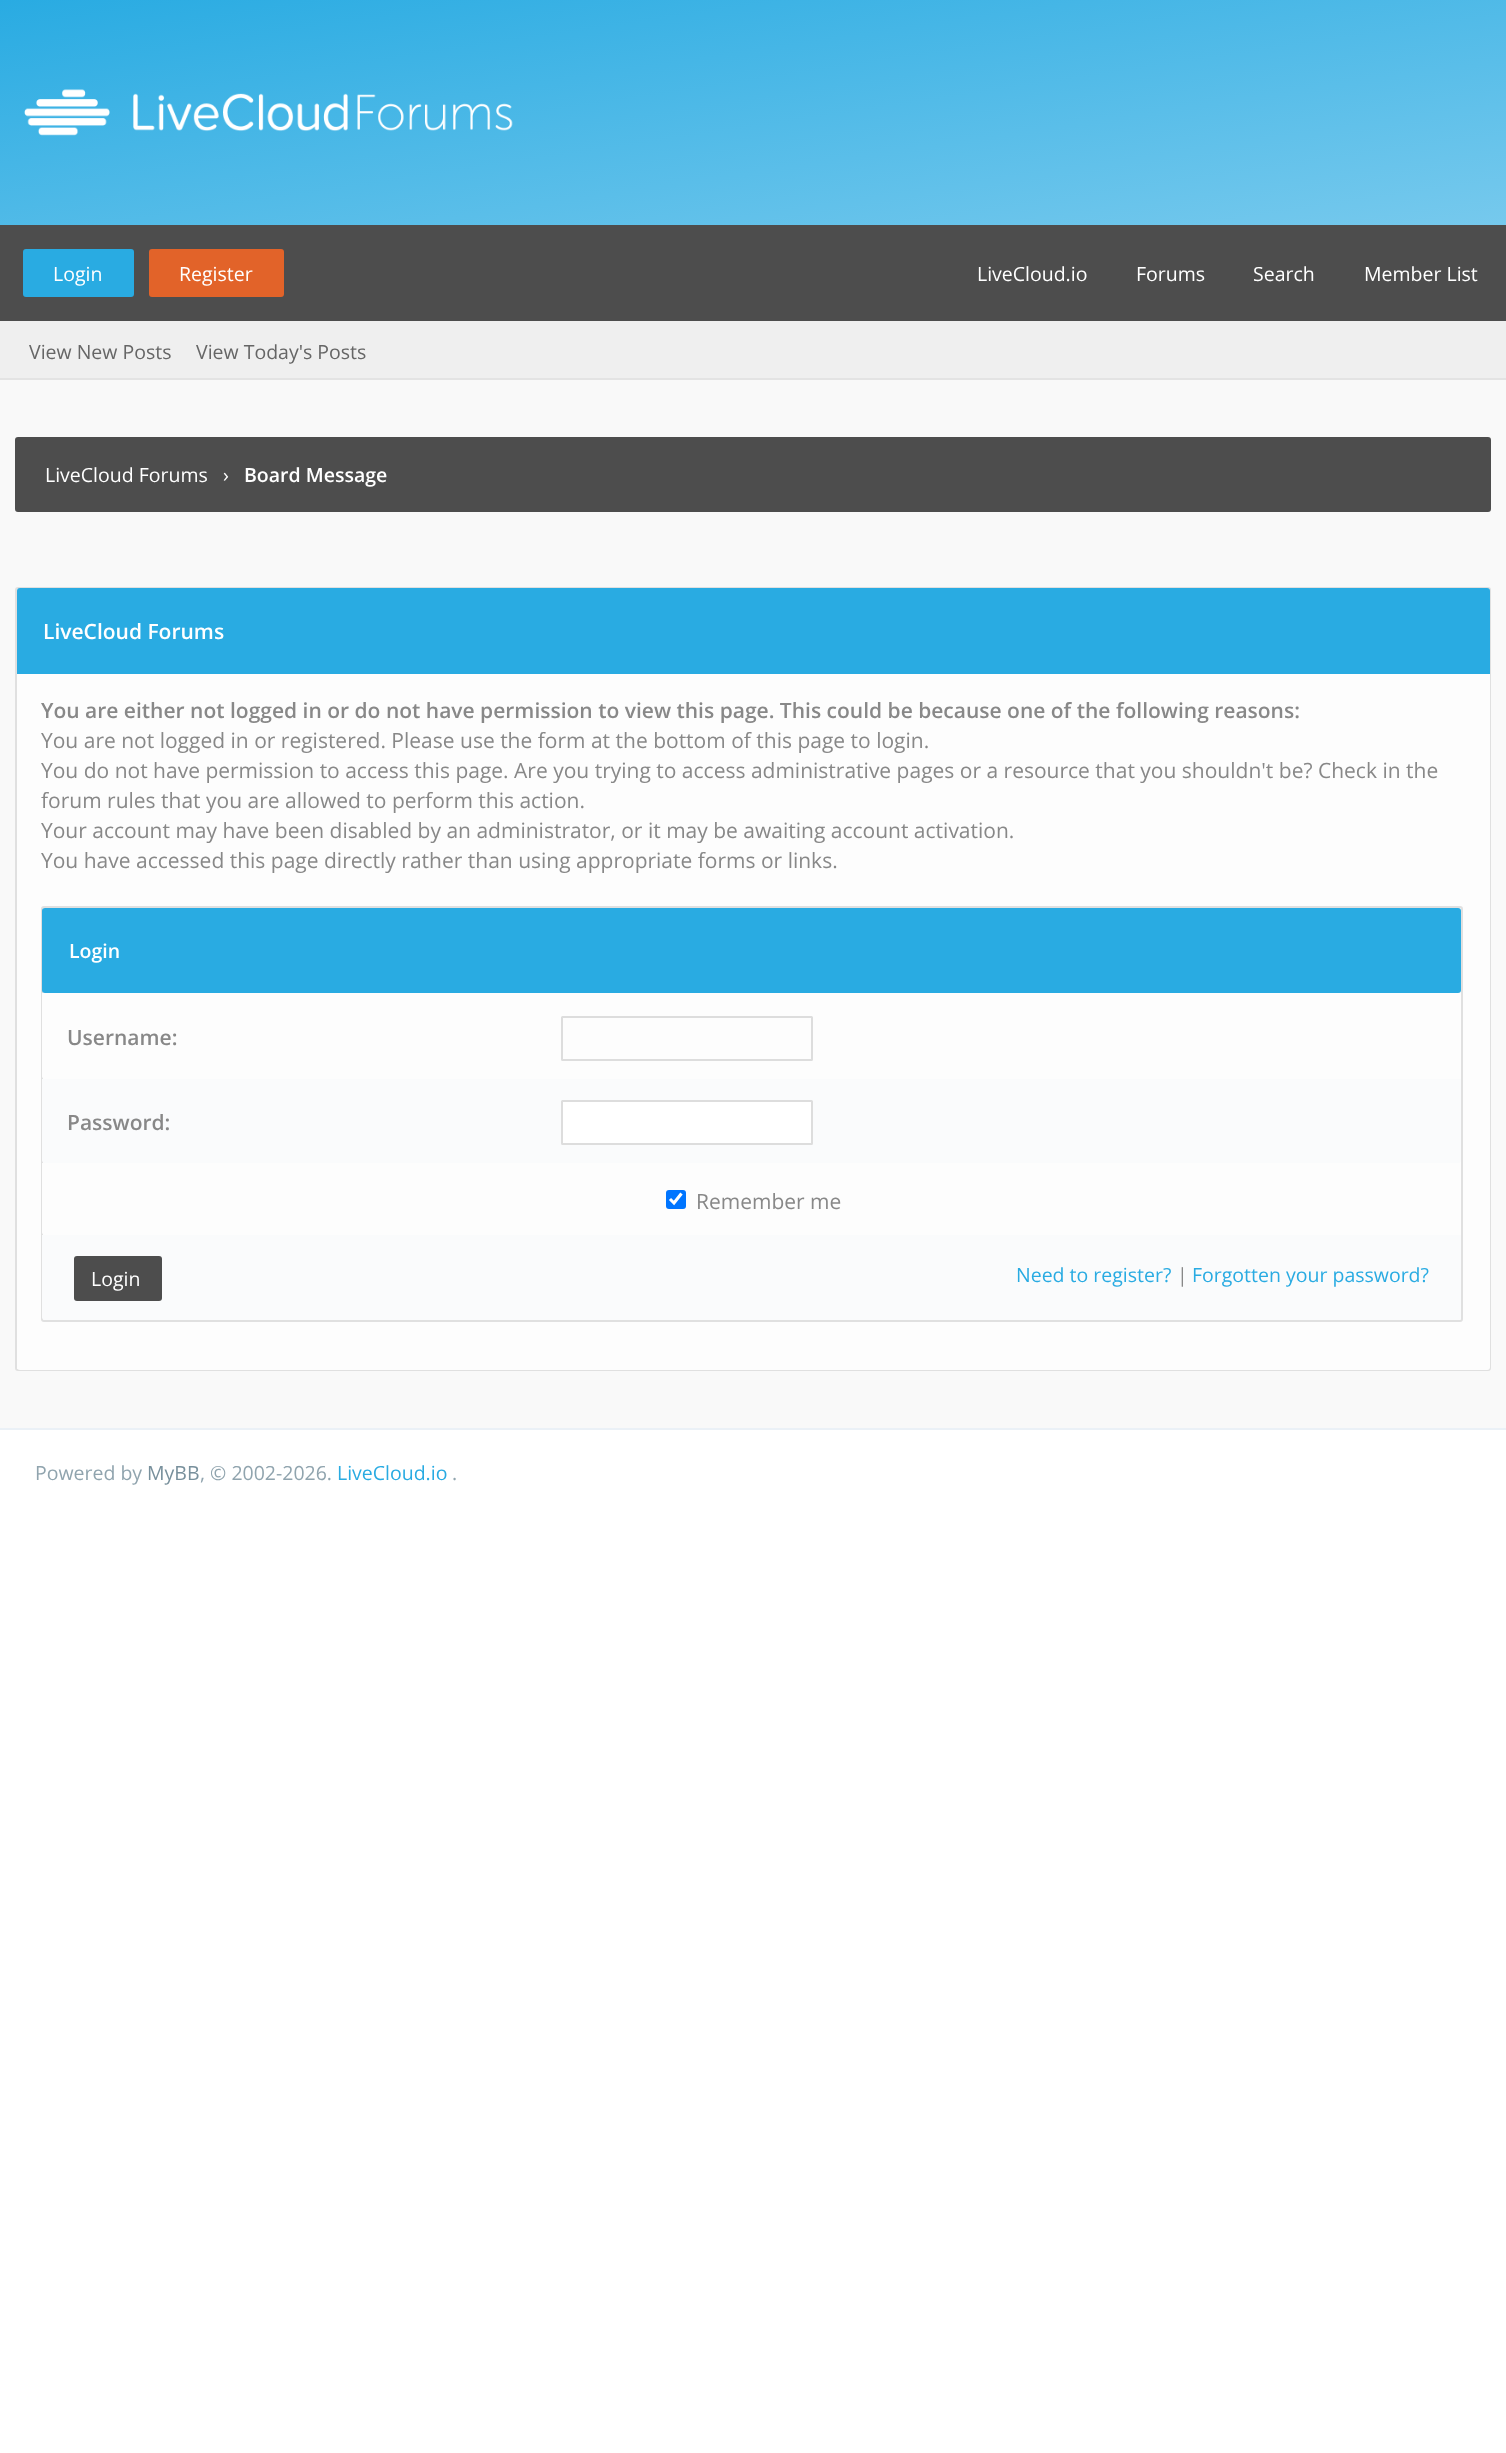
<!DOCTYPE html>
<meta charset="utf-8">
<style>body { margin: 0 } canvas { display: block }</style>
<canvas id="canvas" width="1506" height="2453"></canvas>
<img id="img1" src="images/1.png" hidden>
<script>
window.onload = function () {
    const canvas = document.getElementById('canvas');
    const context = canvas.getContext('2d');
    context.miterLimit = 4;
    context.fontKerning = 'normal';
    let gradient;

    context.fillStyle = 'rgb(255, 255, 255)';
    context.fillRect(0, 0, 1506, 2453);
    gradient = context.createLinearGradient(720, -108, 786, 333);
    gradient.addColorStop(0, 'rgb(41, 171, 226)');
    gradient.addColorStop(1, 'rgb(118, 201, 237)');
    context.fillStyle = gradient;
    context.fillRect(0, 0, 1506, 225);
    context.drawImage(document.getElementById('img1'), 24, 89, 489, 47);
    context.fillStyle = 'rgb(77, 77, 77)';
    context.fillRect(0, 225, 1506, 96);
    context.fillStyle = 'rgb(41, 171, 226)';
    context.beginPath();
    context.roundRect(23, 249, 111, 48, 3);
    context.fill();
    context.fillStyle = 'rgb(226, 99, 41)';
    context.beginPath();
    context.roundRect(149, 249, 135, 48, 3);
    context.fill();
    context.fillStyle = 'rgb(239, 239, 239)';
    context.fillRect(0, 321, 1506, 57);
    context.fillStyle = 'rgb(227, 227, 227)';
    context.fillRect(0, 378, 1506, 2);
    context.fillStyle = 'rgb(249, 249, 249)';
    context.fillRect(0, 380, 1506, 1048);
    context.fillStyle = 'rgb(77, 77, 77)';
    context.beginPath();
    context.roundRect(16, 438, 1474, 73, 2);
    context.fill();
    context.strokeStyle = 'rgb(77, 77, 77)';
    context.lineWidth = 2;
    context.stroke();
    context.fillStyle = 'rgb(255, 255, 255)';
    context.beginPath();
    context.roundRect(16, 588, 1474, 782, 2);
    context.fill();
    context.strokeStyle = 'rgb(224, 224, 224)';
    context.stroke();
    context.fillStyle = 'rgb(41, 171, 226)';
    context.beginPath();
    context.roundRect(17, 588, 1473, 86, [3, 3, 0, 0]);
    context.fill();
    context.fillStyle = 'rgb(253, 253, 253)';
    context.beginPath();
    context.roundRect(17, 674, 1473, 696, [0, 0, 3, 3]);
    context.fill();
    context.beginPath();
    context.roundRect(42, 907, 1420, 414, 2);
    context.stroke();
    context.fillStyle = 'rgb(41, 171, 226)';
    context.beginPath();
    context.roundRect(42, 908, 1419, 85, 3);
    context.fill();
    context.fillStyle = 'rgb(253, 253, 253)';
    context.beginPath();
    context.roundRect(42, 993, 494, 86, [0, 0, 0, 3]);
    context.fill();
    context.beginPath();
    context.roundRect(562, 1017, 250, 43, 0.5);
    context.strokeStyle = 'rgb(221, 221, 221)';
    context.stroke();
    context.fillStyle = 'rgb(250, 251, 252)';
    context.beginPath();
    context.roundRect(42, 1079, 494, 84, [0, 0, 0, 3]);
    context.fill();
    context.beginPath();
    context.roundRect(536, 1079, 925, 84, [0, 0, 3, 0]);
    context.fill();
    context.fillStyle = 'rgb(255, 255, 255)';
    context.beginPath();
    context.roundRect(562, 1101, 250, 43, 0.5);
    context.fill();
    context.stroke();
    context.fillStyle = 'rgb(253, 253, 253)';
    context.beginPath();
    context.roundRect(42, 1163, 1419, 72, [0, 0, 3, 3]);
    context.fill();
    context.fillStyle = 'rgb(0, 117, 255)';
    context.beginPath();
    context.roundRect(666, 1190, 20, 19, 3);
    context.fill();
    context.beginPath();
    context.moveTo(670, 1199);
    context.lineTo(674, 1203);
    context.lineTo(681.5, 1193.5);
    context.strokeStyle = 'rgb(255, 255, 255)';
    context.lineWidth = 3.1;
    context.stroke();
    context.fillStyle = 'rgb(250, 251, 252)';
    context.beginPath();
    context.roundRect(42, 1235, 1419, 85, [0, 0, 3, 3]);
    context.fill();
    context.fillStyle = 'rgb(77, 77, 77)';
    context.beginPath();
    context.roundRect(74, 1256, 88, 45, 3);
    context.fill();
    context.fillStyle = 'rgb(235, 241, 247)';
    context.fillRect(0, 1428, 1506, 2);
    context.font = '19.5px Open Sans';
    context.fillStyle = 'rgb(255, 255, 255)';
    context.fillText('Login', 53, 281);
    context.fillText('Register', 179, 281);
    context.fillText('LiveCloud.io', 977, 281);
    context.fillText('Forums', 1136, 281);
    context.fillText('Search', 1253, 281);
    context.fillText('Member List', 1364, 281);
    context.fillStyle = 'rgb(102, 102, 102)';
    context.fillText('View New Posts', 29, 359);
    context.fillText('View Today\'s Posts', 196, 359);
    context.fillStyle = 'rgb(255, 255, 255)';
    context.fillText('LiveCloud Forums', 45, 482);
    context.fillText('›', 223, 482);
    context.font = '600 19.5px Open Sans';
    context.fillText('Board Message', 244, 482);
    context.font = '600 21px Open Sans';
    context.fillText('LiveCloud Forums', 43, 639);
    context.fillStyle = 'rgb(136, 136, 136)';
    context.fillText('You are either not logged in or do not have permission to view this page. This could be because one of the following reasons:', 41, 718);
    context.font = '21px Open Sans';
    context.fillText('You are not logged in or registered. Please use the form at the bottom of this page to login.', 41, 748);
    context.fillText('You do not have permission to access this page. Are you trying to access administrative pages or a resource that you shouldn\'t be? Check in the', 41, 778);
    context.fillText('forum rules that you are allowed to perform this action.', 41, 808);
    context.fillText('Your account may have been disabled by an administrator, or it may be awaiting account activation.', 41, 838);
    context.fillText('You have accessed this page directly rather than using appropriate forms or links.', 41, 868);
    context.font = '600 19.5px Open Sans';
    context.fillStyle = 'rgb(255, 255, 255)';
    context.fillText('Login', 69, 958);
    context.font = '600 21px Open Sans';
    context.fillStyle = 'rgb(136, 136, 136)';
    context.fillText('Username:', 67, 1045);
    context.fillText('Password:', 67, 1130);
    context.font = '21px Open Sans';
    context.fillText('Remember me', 696, 1209);
    context.font = '19.5px Open Sans';
    context.fillStyle = 'rgb(255, 255, 255)';
    context.fillText('Login', 91, 1286);
    context.fillStyle = 'rgb(41, 171, 226)';
    context.fillText('Need to register?', 1016, 1282);
    context.fillStyle = 'rgb(136, 136, 136)';
    context.fillText('|', 1177, 1282);
    context.fillStyle = 'rgb(41, 171, 226)';
    context.fillText('Forgotten your password?', 1192, 1282);
    context.fillStyle = 'rgb(144, 164, 174)';
    context.fillText('Powered by', 35, 1480);
    context.fillStyle = 'rgb(120, 144, 156)';
    context.fillText('MyBB', 147, 1480);
    context.fillStyle = 'rgb(144, 164, 174)';
    context.fillText(', © 2002-2026.', 200, 1480);
    context.fillStyle = 'rgb(41, 171, 226)';
    context.fillText('LiveCloud.io', 337, 1480);
    context.fillStyle = 'rgb(144, 164, 174)';
    context.fillText('.', 452, 1480);
};
</script>
